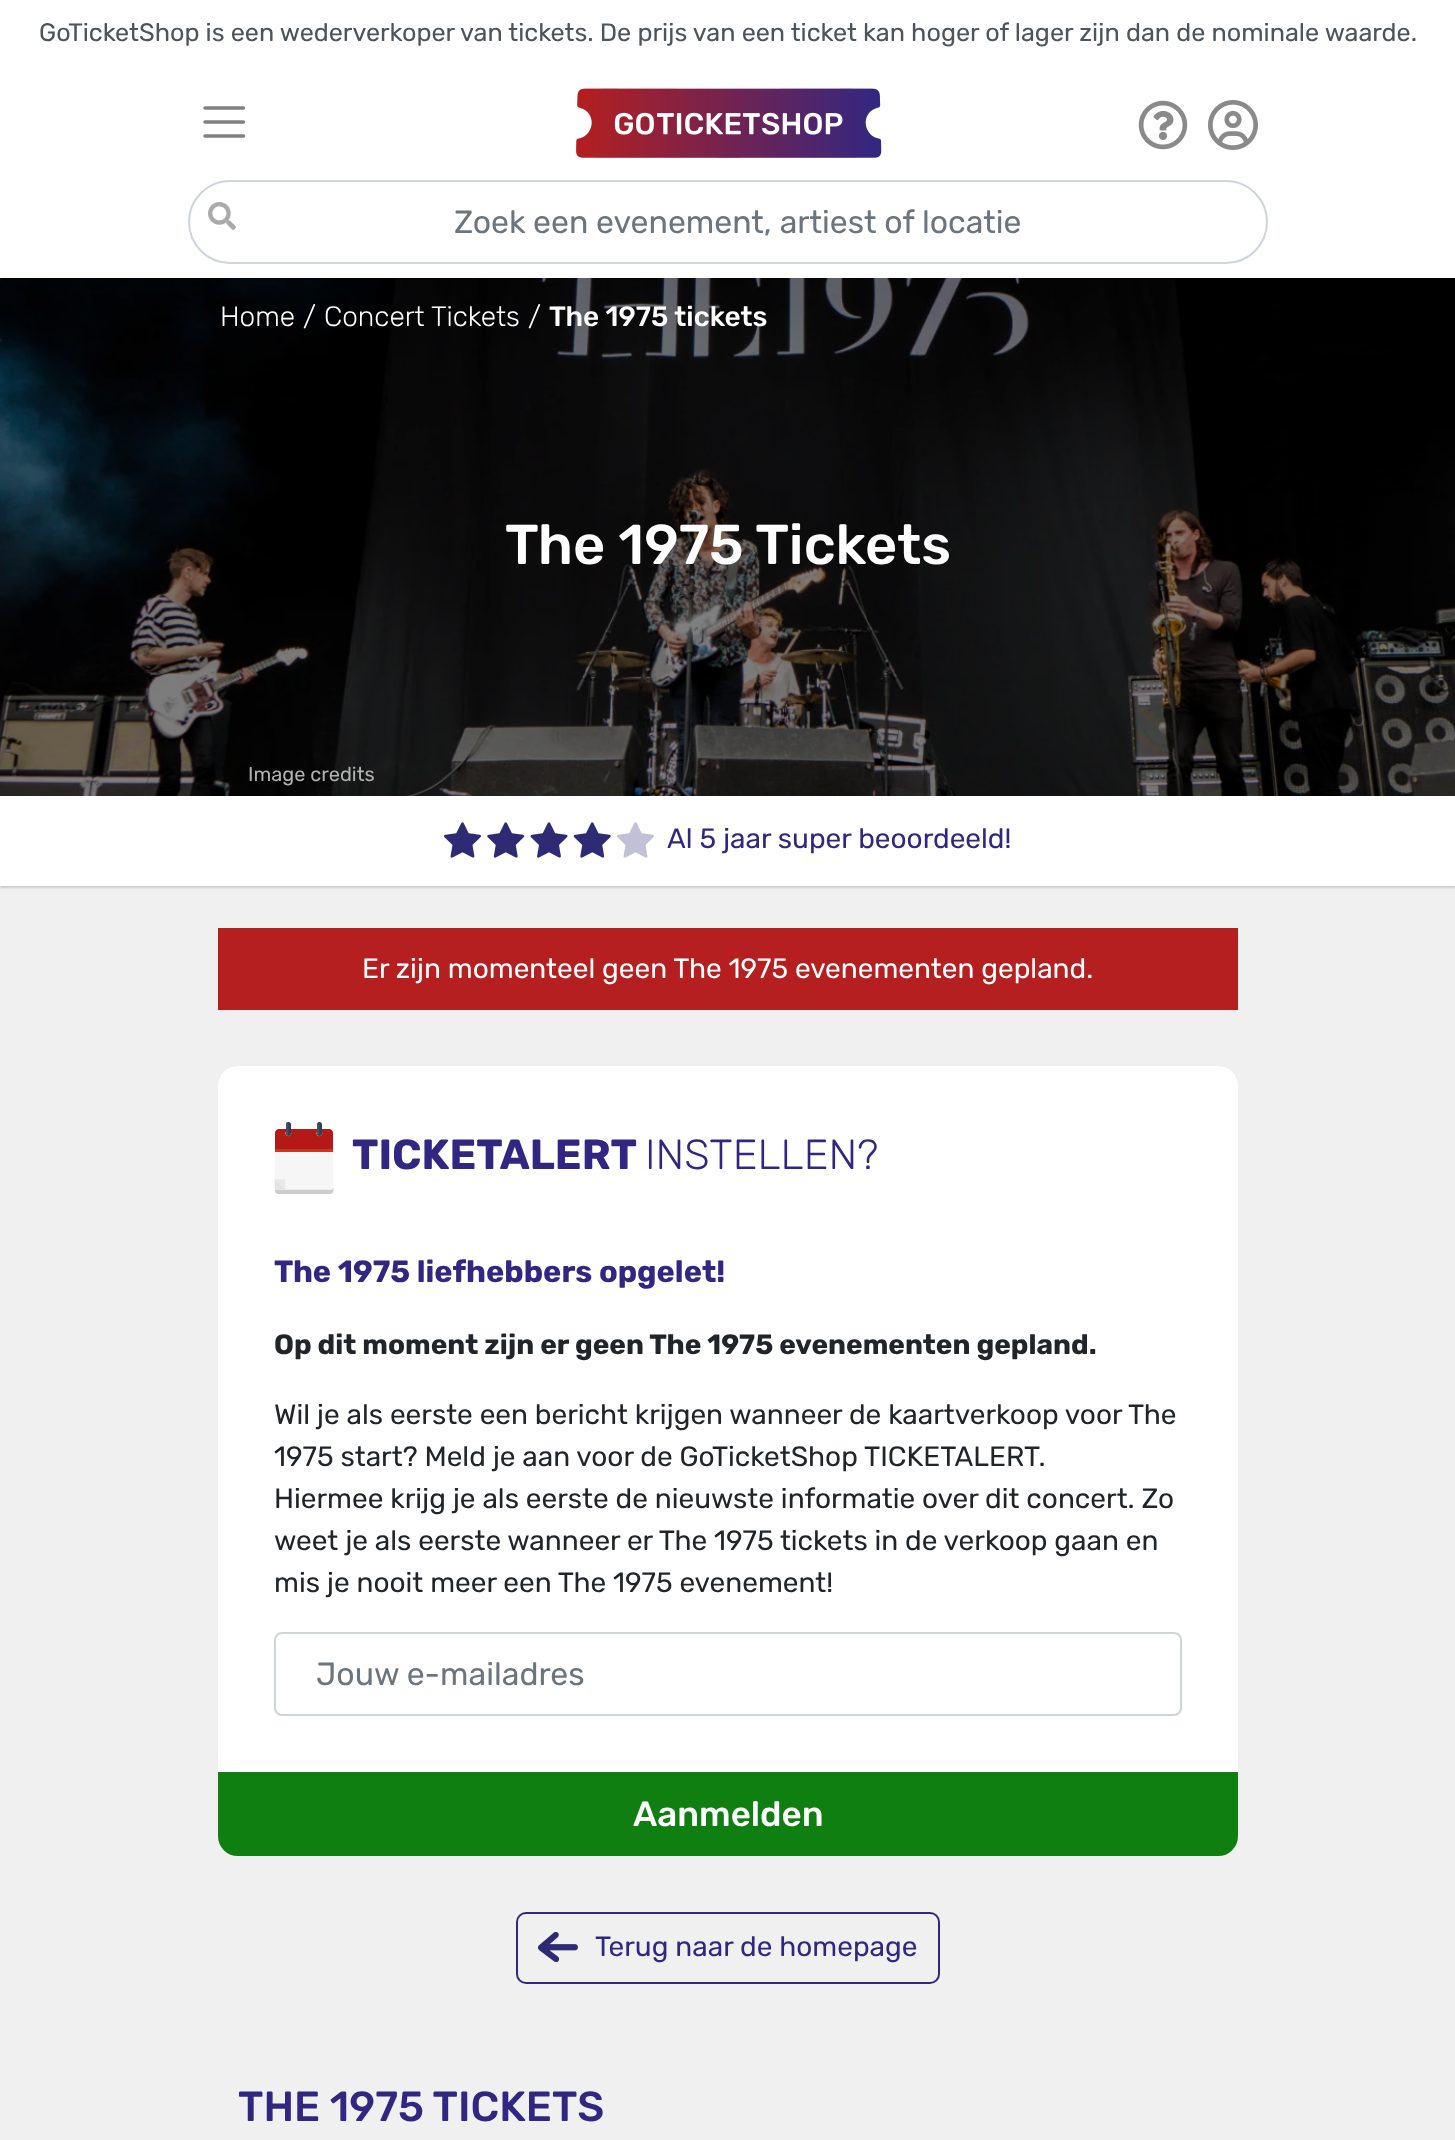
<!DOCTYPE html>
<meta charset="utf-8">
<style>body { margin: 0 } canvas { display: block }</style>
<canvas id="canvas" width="1455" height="2140"></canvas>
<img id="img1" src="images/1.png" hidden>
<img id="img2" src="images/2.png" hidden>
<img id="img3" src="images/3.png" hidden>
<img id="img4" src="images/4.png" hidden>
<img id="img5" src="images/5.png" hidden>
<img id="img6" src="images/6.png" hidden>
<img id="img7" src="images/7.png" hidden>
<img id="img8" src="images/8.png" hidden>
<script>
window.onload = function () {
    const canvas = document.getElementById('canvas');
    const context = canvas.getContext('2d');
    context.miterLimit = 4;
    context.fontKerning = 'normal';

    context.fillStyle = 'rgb(240, 240, 240)';
    context.fillRect(0, 0, 1455, 2140);
    context.fillStyle = 'rgb(255, 255, 255)';
    context.fillRect(0, 0, 1455, 278);
    context.beginPath();
    context.moveTo(205, 108);
    context.lineTo(243.5, 108);
    context.moveTo(205, 122);
    context.lineTo(243.5, 122);
    context.moveTo(205, 136);
    context.lineTo(243.5, 136);
    context.strokeStyle = 'rgb(128, 128, 128)';
    context.lineWidth = 3.5;
    context.lineCap = 'round';
    context.stroke();
    context.drawImage(document.getElementById('img1'), 576, 88, 306, 70);
    context.drawImage(document.getElementById('img2'), 1138, 100, 50, 50);
    context.drawImage(document.getElementById('img3'), 1208, 100, 50, 50);
    context.beginPath();
    context.roundRect(189, 181, 1078, 82, 41);
    context.strokeStyle = 'rgb(206, 212, 218)';
    context.lineWidth = 2;
    context.stroke();
    context.drawImage(document.getElementById('img4'), 208, 202, 28, 28);
    context.fillStyle = 'rgb(204, 204, 204)';
    context.filter = 'blur(1px)';
    context.beginPath();
    context.rect(0, 798, 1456, 90);
    context.fill();
    context.filter = 'none';
    context.drawImage(document.getElementById('img5'), 0, 278, 1455, 518);
    context.fillStyle = 'rgb(255, 255, 255)';
    context.fillRect(0, 796, 1455, 90);
    context.drawImage(document.getElementById('img6'), 444, 822, 210, 36);
    context.fillStyle = 'rgb(181, 31, 31)';
    context.fillRect(218, 928, 1020, 82);
    context.fillStyle = 'rgb(255, 255, 255)';
    context.beginPath();
    context.roundRect(218, 1066, 1020, 706, [20, 20, 0, 0]);
    context.fill();
    context.drawImage(document.getElementById('img7'), 274, 1122, 60, 72);
    context.beginPath();
    context.roundRect(275, 1633, 906, 82, 7);
    context.stroke();
    context.fillStyle = 'rgb(15, 127, 18)';
    context.beginPath();
    context.roundRect(219, 1773, 1018, 82, [0, 0, 19, 19]);
    context.fill();
    context.strokeStyle = 'rgb(15, 127, 18)';
    context.stroke();
    context.beginPath();
    context.roundRect(517, 1913, 422, 70, 9);
    context.strokeStyle = 'rgb(49, 39, 131)';
    context.stroke();
    context.drawImage(document.getElementById('img8'), 538, 1932, 40, 30);
    context.font = '25.2px Rubik';
    context.fillStyle = 'rgb(77, 84, 90)';
    context.fillText('GoTicketShop is een wederverkoper van tickets. De prijs van een ticket kan hoger of lager zijn dan de nominale waarde.', 39, 41);
    context.font = '32px Rubik';
    context.fillStyle = 'rgb(108, 117, 125)';
    context.fillText('Zoek een evenement, artiest of locatie', 454, 233);
    context.font = '300 28px Rubik';
    context.fillStyle = 'rgb(255, 255, 255)';
    context.fillText('Home', 220, 326);
    context.fillText('/', 303, 326);
    context.fillText('Concert Tickets', 324, 326);
    context.fillText('/', 528, 326);
    context.font = '500 28px Rubik';
    context.fillText('The 1975 tickets', 549, 326);
    context.font = '500 56px Rubik';
    context.fillText('The 1975 Tickets', 505, 564);
    context.font = '20px Rubik';
    context.fillStyle = 'rgb(177, 177, 177)';
    context.fillText('Image credits', 248, 781);
    context.font = '28px Rubik';
    context.fillStyle = 'rgb(49, 39, 131)';
    context.fillText('Al 5 jaar super beoordeeld!', 667, 848);
    context.fillStyle = 'rgb(255, 255, 255)';
    context.fillText('Er zijn momenteel geen The 1975 evenementen gepland.', 362, 978);
    context.font = 'bold 42px Rubik';
    context.fillStyle = 'rgb(49, 39, 131)';
    context.fillText('TICKETALERT', 352, 1169);
    context.font = '300 42px Rubik';
    context.fillText('INSTELLEN?', 645, 1169);
    context.font = 'bold 30.75px Rubik';
    context.fillText('The 1975 liefhebbers opgelet!', 274, 1282);
    context.font = 'bold 28px Rubik';
    context.fillStyle = 'rgb(33, 37, 41)';
    context.fillText('Op dit moment zijn er geen The 1975 evenementen gepland.', 274, 1354);
    context.font = '28px Rubik';
    context.fillText('Wil je als eerste een bericht krijgen wanneer de kaartverkoop voor The', 274, 1424);
    context.fillText('1975 start? Meld je aan voor de GoTicketShop TICKETALERT.', 274, 1466);
    context.fillText('Hiermee krijg je als eerste de nieuwste informatie over dit concert. Zo', 274, 1508);
    context.fillText('weet je als eerste wanneer er The 1975 tickets in de verkoop gaan en', 274, 1550);
    context.fillText('mis je nooit meer een The 1975 evenement!', 274, 1592);
    context.font = '32px Rubik';
    context.fillStyle = 'rgb(108, 117, 125)';
    context.fillText('Jouw e-mailadres', 316, 1685);
    context.font = '500 35px Rubik';
    context.fillStyle = 'rgb(255, 255, 255)';
    context.fillText('Aanmelden', 633, 1826);
    context.font = '28px Rubik';
    context.fillStyle = 'rgb(49, 39, 131)';
    context.fillText('Terug naar de homepage', 595, 1956);
    context.font = '500 42px Rubik';
    context.fillText('THE 1975 TICKETS', 238, 2121);
};
</script>
